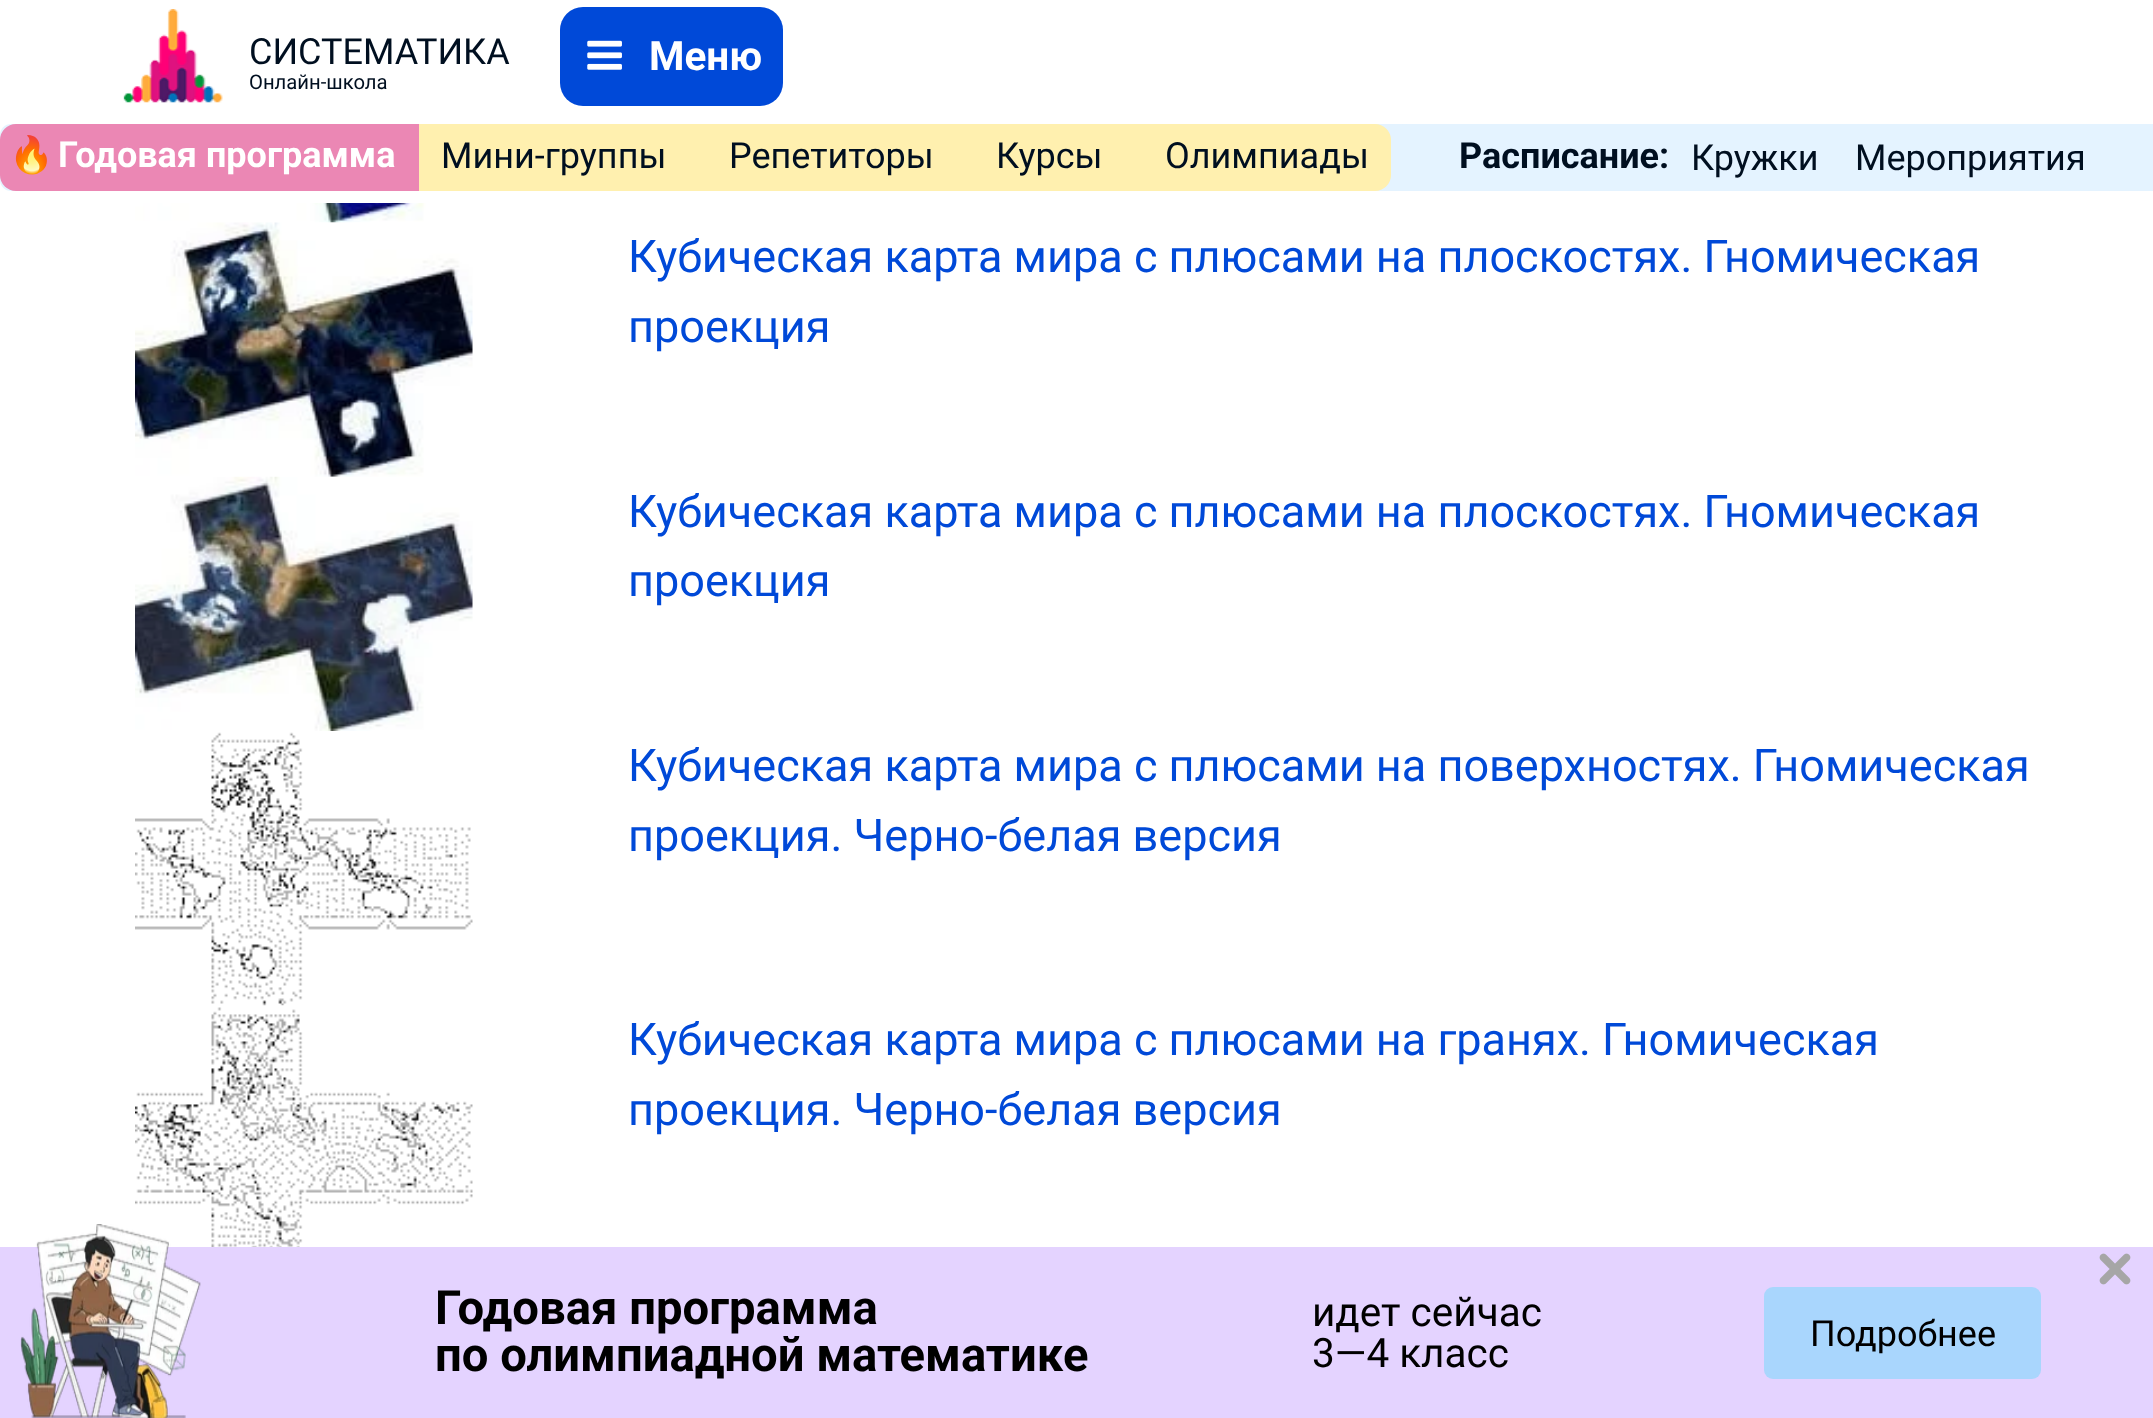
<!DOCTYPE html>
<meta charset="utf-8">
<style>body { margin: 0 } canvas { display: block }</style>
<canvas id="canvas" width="2153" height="1418"></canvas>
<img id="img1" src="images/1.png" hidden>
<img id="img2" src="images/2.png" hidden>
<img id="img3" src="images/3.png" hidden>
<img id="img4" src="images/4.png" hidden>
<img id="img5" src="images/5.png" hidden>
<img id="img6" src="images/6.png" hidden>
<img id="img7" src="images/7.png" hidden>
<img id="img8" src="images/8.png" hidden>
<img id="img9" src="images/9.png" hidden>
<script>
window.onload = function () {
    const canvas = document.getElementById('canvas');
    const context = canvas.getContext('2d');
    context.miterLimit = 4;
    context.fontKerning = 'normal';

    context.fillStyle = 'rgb(255, 255, 255)';
    context.fillRect(0, 0, 2153, 1418);
    context.drawImage(document.getElementById('img1'), 123, 9, 100, 94);
    context.fillStyle = 'rgb(0, 73, 216)';
    context.beginPath();
    context.roundRect(560, 7, 223, 99, 23);
    context.fill();
    context.drawImage(document.getElementById('img2'), 587, 40, 35, 30);
    context.fillStyle = 'rgb(228, 243, 255)';
    context.beginPath();
    context.roundRect(0, 124, 2153, 67, 11);
    context.fill();
    context.fillStyle = 'rgb(235, 135, 180)';
    context.beginPath();
    context.roundRect(0, 124, 419, 67, [16, 0, 0, 16]);
    context.fill();
    context.fillStyle = 'rgb(255, 240, 175)';
    context.beginPath();
    context.roundRect(419, 124, 972, 67, [0, 16, 16, 0]);
    context.fill();
    context.fillStyle = 'rgb(228, 243, 255)';
    context.beginPath();
    context.roundRect(1391, 124, 762, 67, [16, 0, 0, 16]);
    context.fill();
    context.drawImage(document.getElementById('img3'), 135, 203, 338, 20);
    context.drawImage(document.getElementById('img4'), 135, 222, 338, 255);
    context.drawImage(document.getElementById('img5'), 135, 476, 338, 255);
    context.drawImage(document.getElementById('img6'), 135, 732, 338, 274);
    context.drawImage(document.getElementById('img7'), 135, 1005, 338, 242);
    context.fillStyle = 'rgb(228, 211, 255)';
    context.fillRect(0, 1247, 2153, 171);
    context.drawImage(document.getElementById('img8'), 20, 1224, 181, 194);
    context.drawImage(document.getElementById('img9'), 2099, 1253, 32, 32);
    context.fillStyle = 'rgb(169, 214, 253)';
    context.beginPath();
    context.roundRect(1764, 1287, 277, 92, 9);
    context.fill();
    context.font = '36px Roboto';
    context.fillStyle = 'rgb(0, 15, 32)';
    context.fillText('СИСТЕМАТИКА', 249, 64);
    context.font = '20.25px Roboto';
    context.fillText('Онлайн-школа', 249, 89);
    context.font = 'bold 40.5px Roboto';
    context.fillStyle = 'rgb(255, 255, 255)';
    context.fillText('Меню', 649, 70);
    context.font = 'bold 36px Noto Color Emoji';
    context.fillStyle = 'rgb(0, 15, 32)';
    context.fillText('🔥', 9, 167);
    context.font = 'bold 36px Roboto';
    context.fillStyle = 'rgb(255, 255, 255)';
    context.fillText('Годовая программа', 58, 167);
    context.font = '36px Roboto';
    context.fillStyle = 'rgb(0, 15, 32)';
    context.fillText('Мини-группы', 441, 168);
    context.fillText('Репетиторы', 729, 168);
    context.fillText('Курсы', 996, 168);
    context.fillText('Олимпиады', 1165, 168);
    context.font = 'bold 36px Roboto';
    context.fillText('Расписание:', 1459, 168);
    context.font = '36px Roboto';
    context.fillText('Кружки', 1691, 170);
    context.fillText('Мероприятия', 1855, 170);
    context.font = '45px Roboto';
    context.fillStyle = 'rgb(0, 73, 216)';
    context.fillText('Кубическая карта мира с плюсами на плоскостях. Гномическая', 628, 272);
    context.fillText('проекция', 628, 342);
    context.fillText('Кубическая карта мира с плюсами на плоскостях. Гномическая', 628, 527);
    context.fillText('проекция', 628, 596);
    context.fillText('Кубическая карта мира с плюсами на поверхностях. Гномическая', 628, 781);
    context.fillText('проекция. Черно-белая версия', 628, 851);
    context.fillText('Кубическая карта мира с плюсами на гранях. Гномическая', 628, 1055);
    context.fillText('проекция. Черно-белая версия', 628, 1125);
    context.font = 'bold 47.25px Roboto';
    context.fillStyle = 'rgb(0, 0, 0)';
    context.fillText('Годовая программа', 435, 1324);
    context.fillText('по олимпиадной математике', 435, 1371);
    context.font = '40.5px Roboto';
    context.fillText('идет сейчас', 1312, 1326);
    context.fillText('3—4 класс', 1312, 1367);
    context.font = '36px Roboto';
    context.fillText('Подробнее', 1810, 1346);
};
</script>
